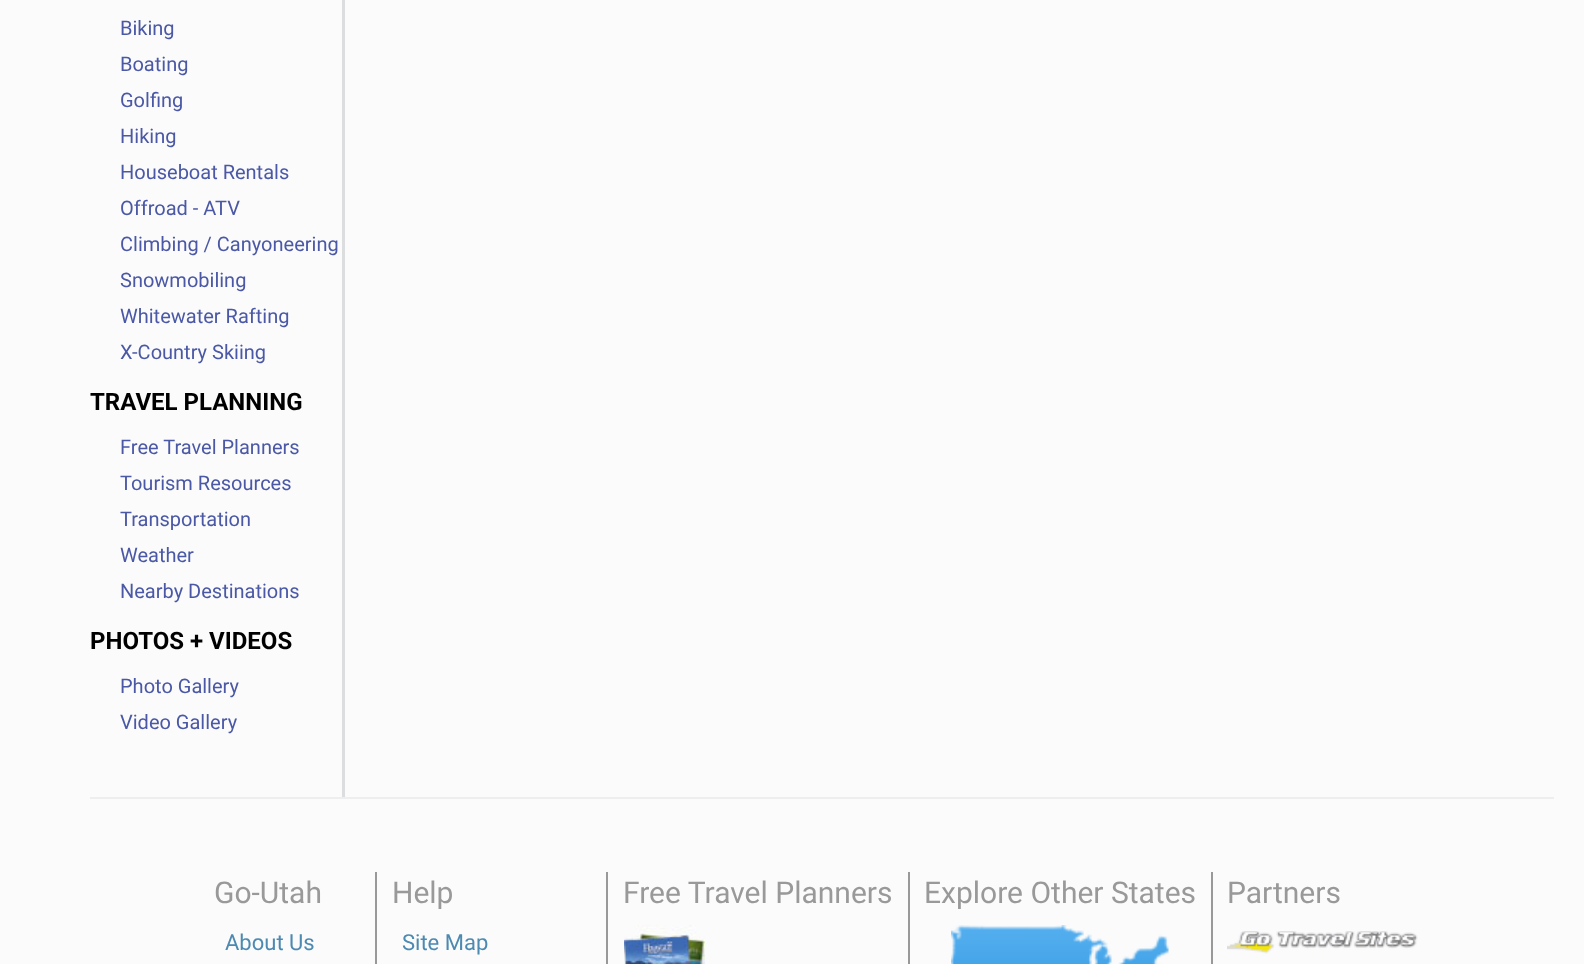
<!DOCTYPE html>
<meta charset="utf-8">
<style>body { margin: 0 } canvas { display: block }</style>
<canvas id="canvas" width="1584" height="964"></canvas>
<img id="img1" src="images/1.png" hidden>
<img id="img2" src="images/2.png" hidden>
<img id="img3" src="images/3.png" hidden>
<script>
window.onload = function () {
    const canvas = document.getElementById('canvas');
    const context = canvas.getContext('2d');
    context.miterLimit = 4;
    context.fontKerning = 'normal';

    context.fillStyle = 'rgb(251, 251, 251)';
    context.fillRect(0, 0, 1584, 964);
    context.fillStyle = 'rgb(220, 221, 222)';
    context.fillRect(342, 0, 3, 797);
    context.fillStyle = 'rgb(238, 238, 238)';
    context.fillRect(90, 797, 1464, 2);
    context.fillStyle = 'rgb(153, 153, 153)';
    context.fillRect(375, 872, 2, 92);
    context.fillRect(606, 872, 2, 92);
    context.fillRect(908, 872, 2, 92);
    context.drawImage(document.getElementById('img1'), 624, 925, 81, 39);
    context.fillRect(1211, 872, 2, 92);
    context.drawImage(document.getElementById('img2'), 951, 925, 218, 39);
    context.drawImage(document.getElementById('img3'), 1227, 931, 191, 23);
    context.font = '20px Roboto';
    context.fillStyle = 'rgb(74, 88, 166)';
    context.fillText('Biking', 120, 35);
    context.fillText('Boating', 120, 71);
    context.fillText('Golfing', 120, 107);
    context.fillText('Hiking', 120, 143);
    context.fillText('Houseboat Rentals', 120, 179);
    context.fillText('Offroad - ATV', 120, 215);
    context.fillText('Climbing / Canyoneering', 120, 251);
    context.fillText('Snowmobiling', 120, 287);
    context.fillText('Whitewater Rafting', 120, 323);
    context.fillText('X-Country Skiing', 120, 359);
    context.font = 'bold 24px Roboto';
    context.fillStyle = 'rgb(0, 0, 0)';
    context.fillText('TRAVEL PLANNING', 90, 410);
    context.font = '20px Roboto';
    context.fillStyle = 'rgb(74, 88, 166)';
    context.fillText('Free Travel Planners', 120, 454);
    context.fillText('Tourism Resources', 120, 490);
    context.fillText('Transportation', 120, 526);
    context.fillText('Weather', 120, 562);
    context.fillText('Nearby Destinations', 120, 598);
    context.font = 'bold 24px Roboto';
    context.fillStyle = 'rgb(0, 0, 0)';
    context.fillText('PHOTOS + VIDEOS', 90, 649);
    context.font = '20px Roboto';
    context.fillStyle = 'rgb(74, 88, 166)';
    context.fillText('Photo Gallery', 120, 693);
    context.fillText('Video Gallery', 120, 729);
    context.font = '30px Roboto';
    context.fillStyle = 'rgb(153, 153, 153)';
    context.fillText('Go-Utah', 214, 903);
    context.font = '22px Roboto';
    context.fillStyle = 'rgb(77, 138, 177)';
    context.fillText('About Us', 225, 950);
    context.font = '30px Roboto';
    context.fillStyle = 'rgb(153, 153, 153)';
    context.fillText('Help', 392, 903);
    context.font = '22px Roboto';
    context.fillStyle = 'rgb(77, 138, 177)';
    context.fillText('Site Map', 402, 950);
    context.font = '30px Roboto';
    context.fillStyle = 'rgb(153, 153, 153)';
    context.fillText('Free Travel Planners', 623, 903);
    context.fillText('Explore Other States', 924, 903);
    context.fillText('Partners', 1227, 903);
};
</script>
